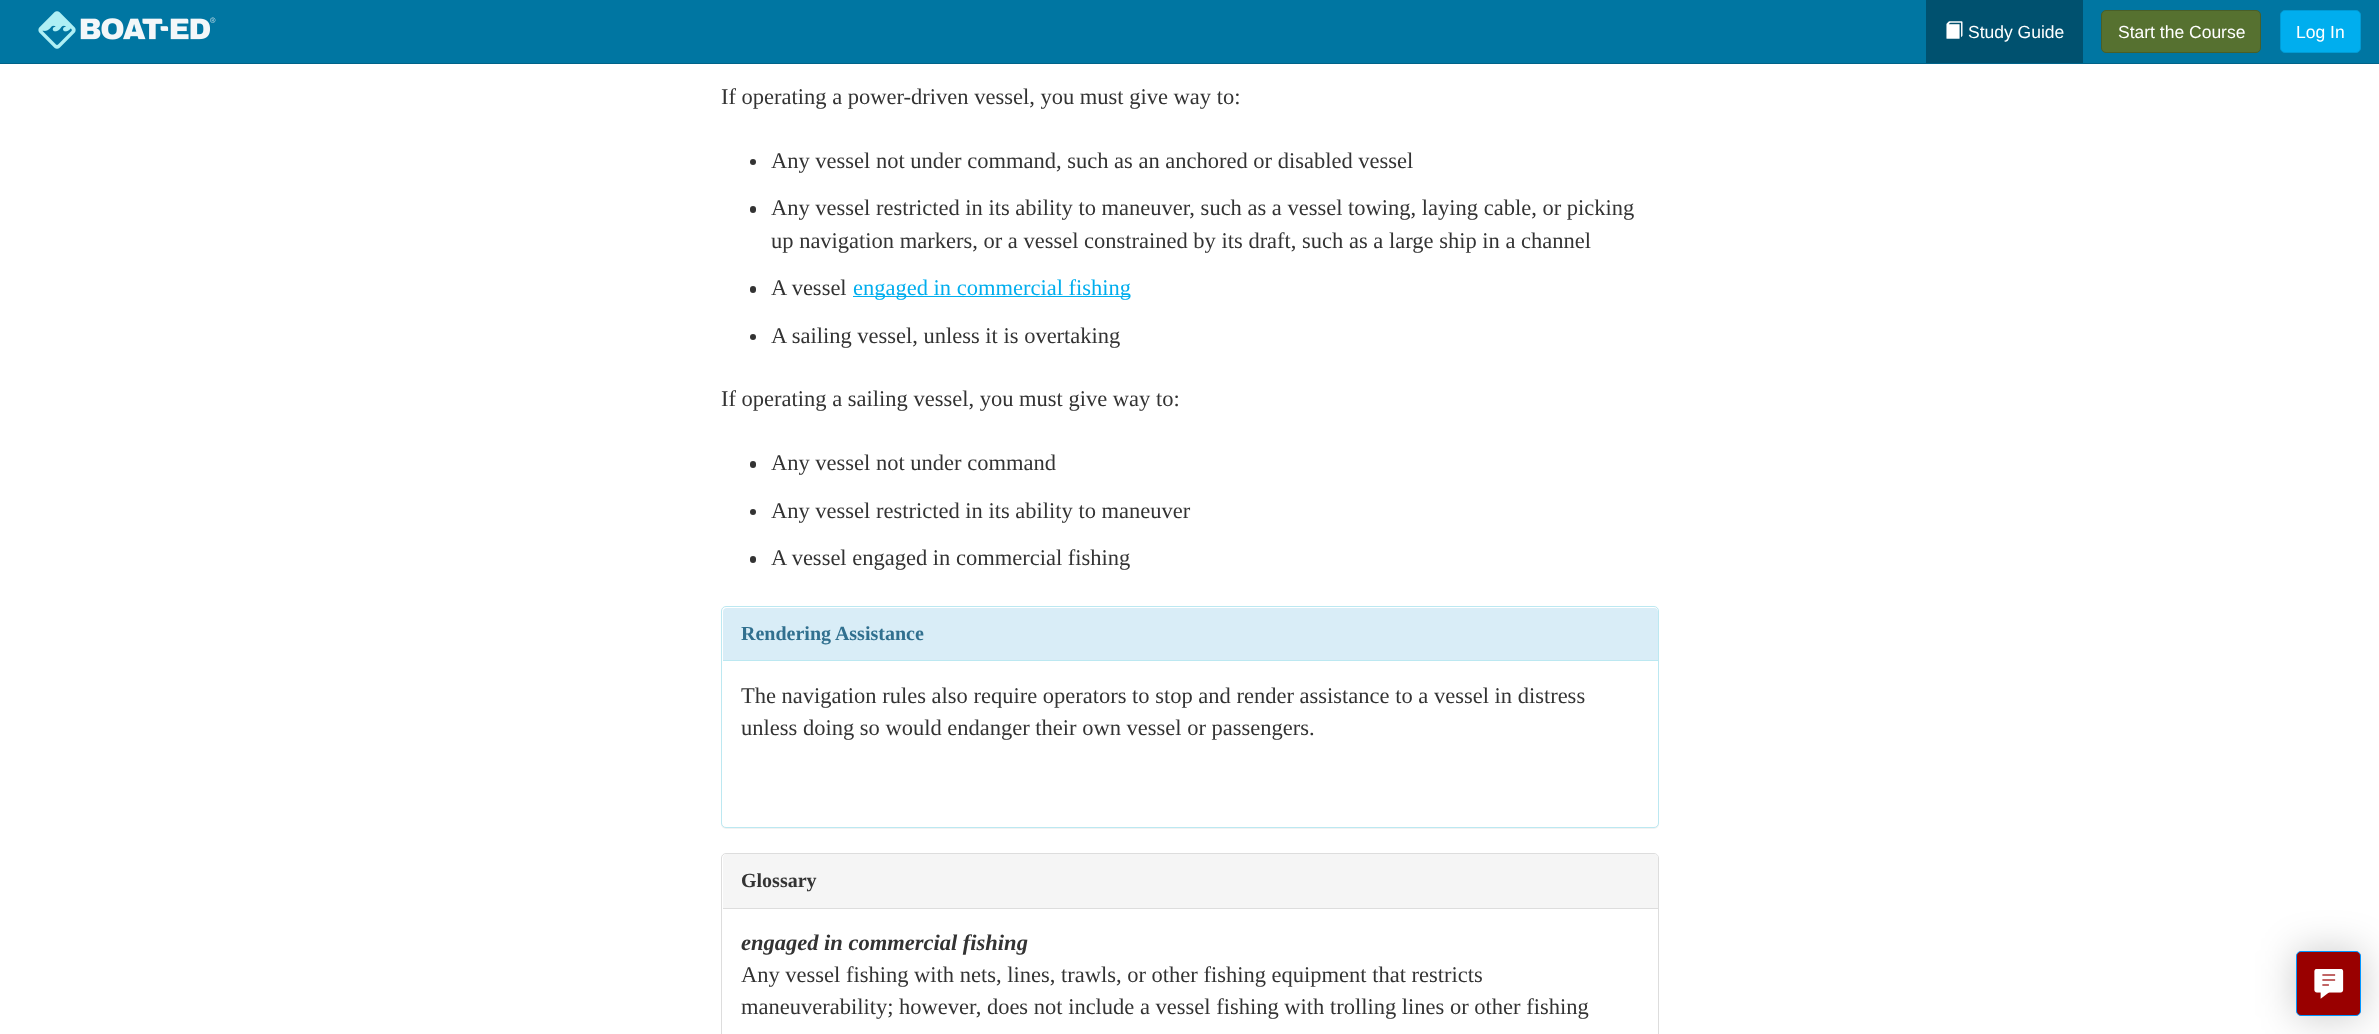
<!DOCTYPE html>
<meta charset="utf-8">
<style>body { margin: 0 } canvas { display: block }</style>
<canvas id="canvas" width="2379" height="1034"></canvas>
<img id="img1" src="images/1.png" hidden>
<img id="img2" src="images/2.png" hidden>
<img id="img3" src="images/3.png" hidden>
<script>
window.onload = function () {
    const canvas = document.getElementById('canvas');
    const context = canvas.getContext('2d');
    context.miterLimit = 4;
    context.fontKerning = 'normal';

    context.fillStyle = 'rgb(255, 255, 255)';
    context.fillRect(0, 0, 2379, 1034);
    context.fillStyle = 'rgb(0, 118, 162)';
    context.fillRect(0, 0, 2379, 63);
    context.fillStyle = 'rgb(0, 99, 137)';
    context.fillRect(0, 63, 2379, 1);
    context.drawImage(document.getElementById('img1'), 38, 11, 178, 38);
    context.fillStyle = 'rgb(0, 81, 111)';
    context.fillRect(1926, 0, 157, 63);
    context.drawImage(document.getElementById('img2'), 1946, 21, 17, 18);
    context.fillStyle = 'rgb(86, 113, 48)';
    context.beginPath();
    context.roundRect(2101.5, 10.5, 159, 42, 4.5);
    context.fill();
    context.strokeStyle = 'rgb(73, 95, 41)';
    context.stroke();
    context.fillStyle = 'rgb(0, 174, 238)';
    context.beginPath();
    context.roundRect(2280.5, 10.5, 80, 42, 4.5);
    context.fill();
    context.strokeStyle = 'rgb(0, 155, 213)';
    context.stroke();
    context.fillStyle = 'rgb(51, 51, 51)';
    context.beginPath();
    context.arc(753, 162, 3, 0, 2 * Math.PI);
    context.fill();
    context.beginPath();
    context.roundRect(750, 206, 6, 7, 3);
    context.fill();
    context.beginPath();
    context.roundRect(750, 286, 6, 7, 3);
    context.fill();
    context.fillStyle = 'rgb(0, 174, 238)';
    context.fillRect(853, 296, 277, 1);
    context.fillStyle = 'rgb(51, 51, 51)';
    context.beginPath();
    context.arc(753, 337, 3, 0, 2 * Math.PI);
    context.fill();
    context.beginPath();
    context.roundRect(750, 461, 6, 7, 3);
    context.fill();
    context.beginPath();
    context.arc(753, 512, 3, 0, 2 * Math.PI);
    context.fill();
    context.beginPath();
    context.roundRect(750, 556, 6, 7, 3);
    context.fill();
    context.fillStyle = 'rgba(0, 0, 0, 0.05)';
    context.filter = 'blur(0.5px)';
    context.beginPath();
    context.roundRect(721, 608, 938, 221, 5);
    context.fill();
    context.filter = 'none';
    context.fillStyle = 'rgb(255, 255, 255)';
    context.beginPath();
    context.roundRect(721.5, 606.5, 937, 221, 4.5);
    context.fill();
    context.strokeStyle = 'rgb(188, 232, 241)';
    context.stroke();
    context.fillStyle = 'rgb(217, 237, 247)';
    context.beginPath();
    context.roundRect(723, 608, 935, 53, [4, 4, 0, 0]);
    context.fill();
    context.fillStyle = 'rgb(188, 232, 241)';
    context.fillRect(723, 660, 935, 1);
    context.beginPath();
    context.roundRect(721.5, 853.5, 937, 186, 4.5);
    context.strokeStyle = 'rgb(221, 221, 221)';
    context.stroke();
    context.fillStyle = 'rgb(245, 245, 245)';
    context.beginPath();
    context.roundRect(723, 854, 935, 55, [4, 4, 0, 0]);
    context.fill();
    context.fillStyle = 'rgb(221, 221, 221)';
    context.fillRect(723, 908, 935, 1);
    context.fillStyle = 'rgba(0, 0, 0, 0.2)';
    context.filter = 'blur(19px)';
    context.beginPath();
    context.roundRect(2295, 950, 68, 68, 6);
    context.fill();
    context.filter = 'none';
    context.fillStyle = 'rgb(153, 0, 0)';
    context.beginPath();
    context.roundRect(2296.5, 951.5, 64, 64, 4.5);
    context.fill();
    context.strokeStyle = 'rgb(0, 150, 255)';
    context.stroke();
    context.drawImage(document.getElementById('img3'), 2314, 969, 30, 30);
    context.font = '17.5px Liberation Sans';
    context.fillStyle = 'rgb(255, 255, 255)';
    context.fillText('Study Guide', 1968, 38);
    context.fillText('Start the Course', 2118, 38);
    context.fillText('Log In', 2296, 38);
    context.font = '22.5px Liberation Serif';
    context.fillStyle = 'rgb(51, 51, 51)';
    context.fillText('If operating a power-driven vessel, you must give way to:', 721, 104);
    context.fillText('Any vessel not under command, such as an anchored or disabled vessel', 771, 168);
    context.fillText('Any vessel restricted in its ability to maneuver, such as a vessel towing, laying cable, or picking', 771, 215);
    context.fillText('up navigation markers, or a vessel constrained by its draft, such as a large ship in a channel', 771, 248);
    context.fillText('A vessel', 771, 295);
    context.fillStyle = 'rgb(0, 174, 238)';
    context.fillText('engaged in commercial fishing', 853, 295);
    context.fillStyle = 'rgb(51, 51, 51)';
    context.fillText('A sailing vessel, unless it is overtaking', 771, 343);
    context.fillText('If operating a sailing vessel, you must give way to:', 721, 406);
    context.fillText('Any vessel not under command', 771, 470);
    context.fillText('Any vessel restricted in its ability to maneuver', 771, 518);
    context.fillText('A vessel engaged in commercial fishing', 771, 565);
    context.font = 'bold 20px Liberation Serif';
    context.fillStyle = 'rgb(49, 112, 143)';
    context.fillText('Rendering Assistance', 741, 640);
    context.font = '22.5px Liberation Serif';
    context.fillStyle = 'rgb(51, 51, 51)';
    context.fillText('The navigation rules also require operators to stop and render assistance to a vessel in distress', 741, 703);
    context.fillText('unless doing so would endanger their own vessel or passengers.', 741, 735);
    context.font = 'bold 20px Liberation Serif';
    context.fillText('Glossary', 741, 887);
    context.font = 'italic bold 22.5px Liberation Serif';
    context.fillText('engaged in commercial fishing', 741, 950);
    context.font = '22.5px Liberation Serif';
    context.fillText('Any vessel fishing with nets, lines, trawls, or other fishing equipment that restricts', 741, 982);
    context.fillText('maneuverability; however, does not include a vessel fishing with trolling lines or other fishing', 741, 1014);
};
</script>
